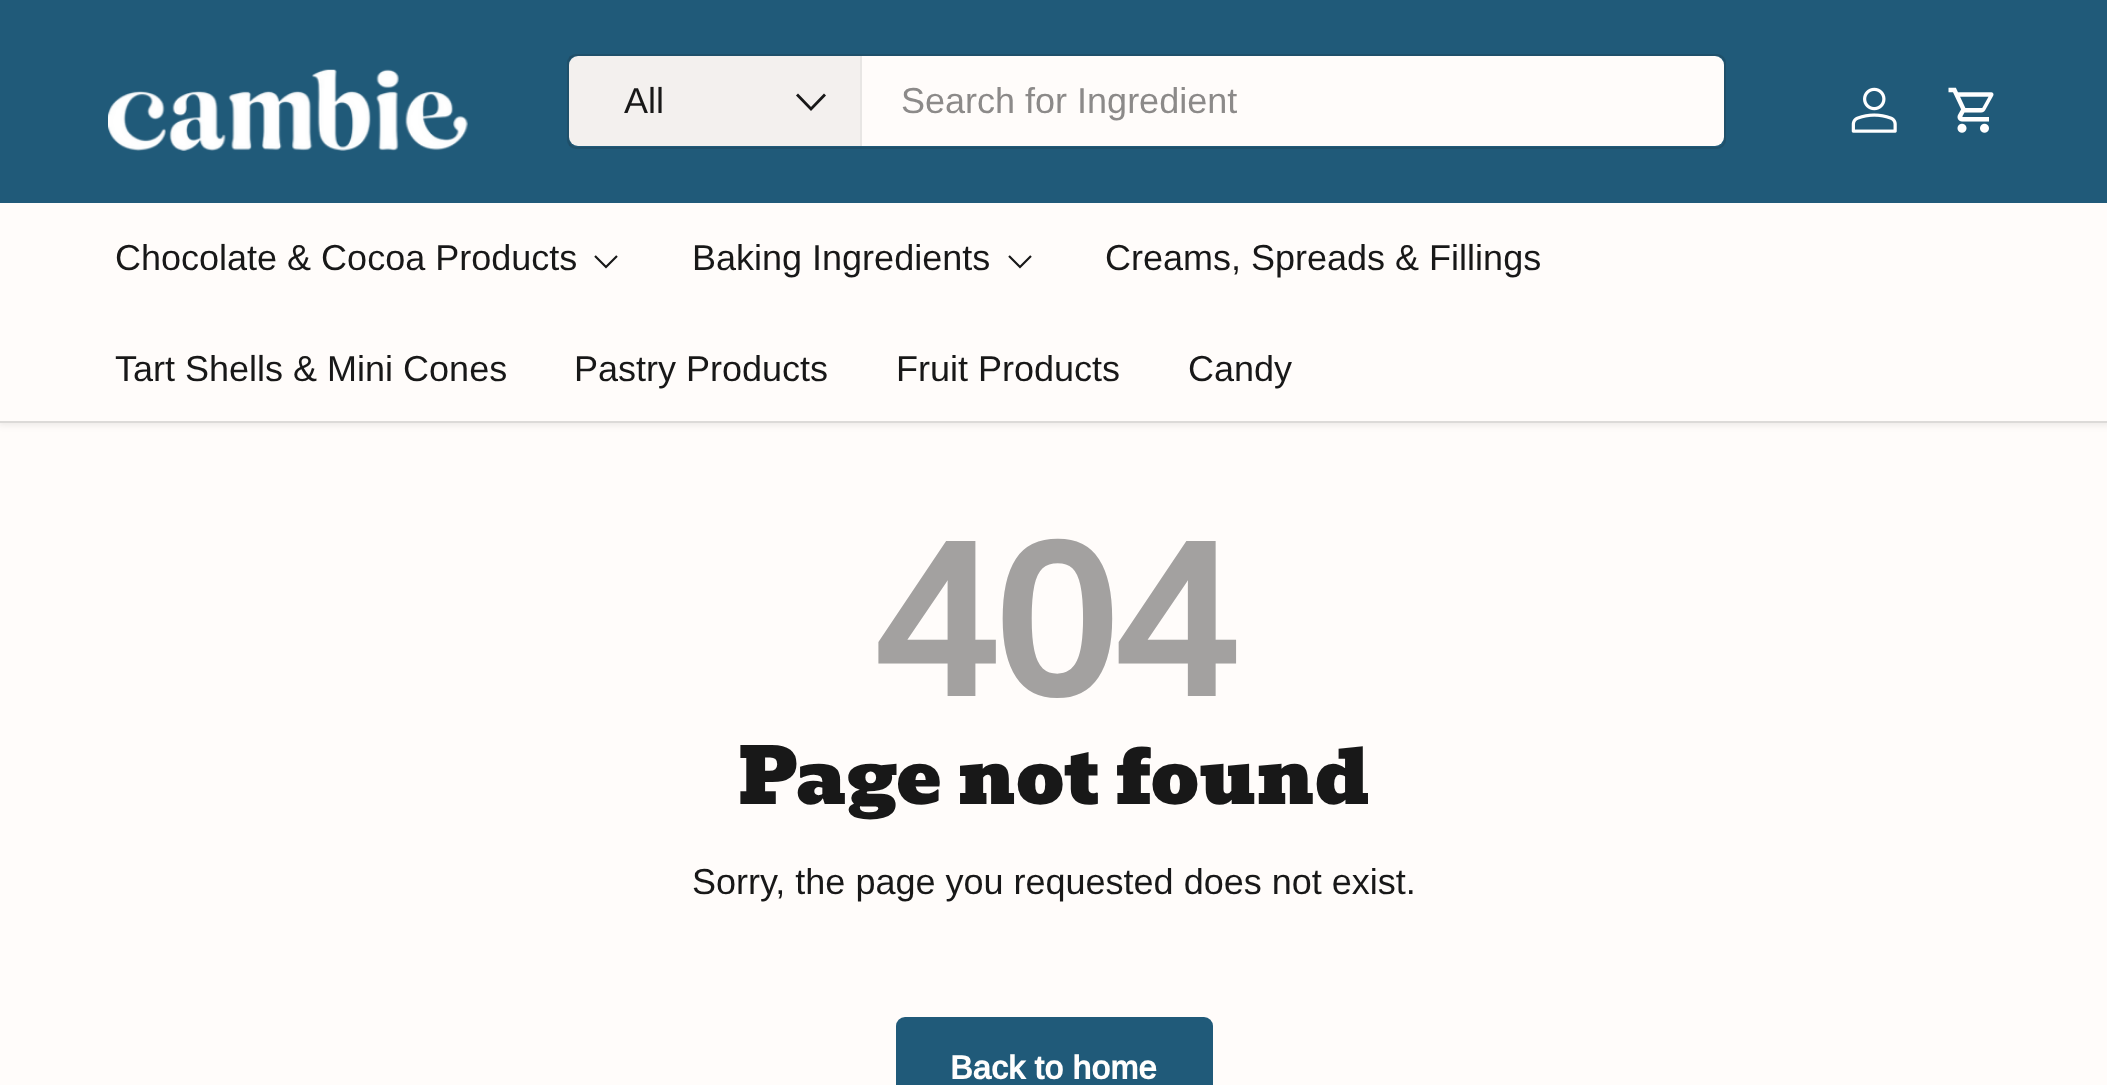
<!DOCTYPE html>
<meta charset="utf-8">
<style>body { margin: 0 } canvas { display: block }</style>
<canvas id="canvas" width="2107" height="1085"></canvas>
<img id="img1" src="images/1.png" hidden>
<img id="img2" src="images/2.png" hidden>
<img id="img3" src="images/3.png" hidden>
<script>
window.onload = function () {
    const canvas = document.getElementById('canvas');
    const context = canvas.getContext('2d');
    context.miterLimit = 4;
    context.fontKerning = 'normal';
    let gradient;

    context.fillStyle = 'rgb(255, 252, 250)';
    context.fillRect(0, 0, 2107, 1085);
    context.fillStyle = 'rgba(0, 0, 0, 0.08)';
    context.filter = 'blur(3.5px)';
    context.beginPath();
    context.rect(-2, -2, 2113, 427);
    context.fill();
    context.filter = 'none';
    context.fillStyle = 'rgb(32, 90, 121)';
    context.fillRect(0, 0, 2107, 203);
    context.drawImage(document.getElementById('img1'), 108, 69, 360, 82);
    context.beginPath();
    context.roundRect(568, 55, 1157, 93, 8);
    context.strokeStyle = 'rgb(31, 80, 106)';
    context.lineWidth = 2;
    context.stroke();
    context.fillStyle = 'rgb(255, 252, 250)';
    context.beginPath();
    context.roundRect(569, 56, 1155, 90, 9);
    context.fill();
    context.fillStyle = 'rgba(24, 24, 24, 0.05)';
    context.fillRect(569, 56, 291, 90);
    context.fillStyle = 'rgb(232, 230, 228)';
    context.fillRect(860, 56, 2, 90);
    context.beginPath();
    context.moveTo(825, 94.5);
    context.lineTo(811, 109);
    context.lineTo(797, 94.5);
    context.strokeStyle = 'rgb(24, 24, 24)';
    context.lineWidth = 2.8;
    context.stroke();
    context.drawImage(document.getElementById('img2'), 1851, 87, 46, 46);
    context.drawImage(document.getElementById('img3'), 1948, 87, 46, 46);
    context.fillStyle = 'rgb(255, 252, 250)';
    context.fillRect(0, 203, 2107, 218);
    context.beginPath();
    context.moveTo(617, 256);
    context.lineTo(606, 267);
    context.lineTo(595, 256);
    context.lineWidth = 2.2;
    context.stroke();
    context.beginPath();
    context.moveTo(1031, 256);
    context.lineTo(1020, 267);
    context.lineTo(1009, 256);
    context.stroke();
    context.fillStyle = 'rgb(220, 218, 216)';
    context.fillRect(0, 421, 2107, 2);
    gradient = context.createLinearGradient(277, 954, 1197, 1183);
    gradient.addColorStop(0.6, 'rgb(70, 124, 151)');
    gradient.addColorStop(0.6, 'rgb(32, 90, 121)');
    gradient.addColorStop(1, 'rgb(32, 90, 121)');
    context.fillStyle = gradient;
    context.beginPath();
    context.roundRect(896, 1017, 317, 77, 9);
    context.fill();
    context.font = '36px Arimo';
    context.fillStyle = 'rgb(24, 24, 24)';
    context.fillText('All', 624, 113);
    context.fillStyle = 'rgb(140, 138, 137)';
    context.fillText('Search for Ingredient', 901, 113);
    context.fillStyle = 'rgb(24, 24, 24)';
    context.fillText('Chocolate & Cocoa Products', 115, 270);
    context.fillText('Baking Ingredients', 692, 270);
    context.fillText('Creams, Spreads & Fillings', 1105, 270);
    context.fillText('Tart Shells & Mini Cones', 115, 381);
    context.fillText('Pastry Products', 574, 381);
    context.fillText('Fruit Products', 896, 381);
    context.fillText('Candy', 1188, 381);
    context.font = 'bold 216px Arimo';
    context.fillStyle = 'rgb(163, 161, 160)';
    context.fillText('404', 874, 696);
    context.font = '75.75px Bevan';
    context.fillStyle = 'rgb(24, 24, 24)';
    context.fillText('Page not found', 738, 804);
    context.font = '36px Arimo';
    context.fillText('Sorry, the page you requested does not exist.', 692, 894);
    context.font = 'bold 33px Arimo';
    context.fillStyle = 'rgb(255, 254, 253)';
    context.fillText('Back to home', 950, 1079);
};
</script>
